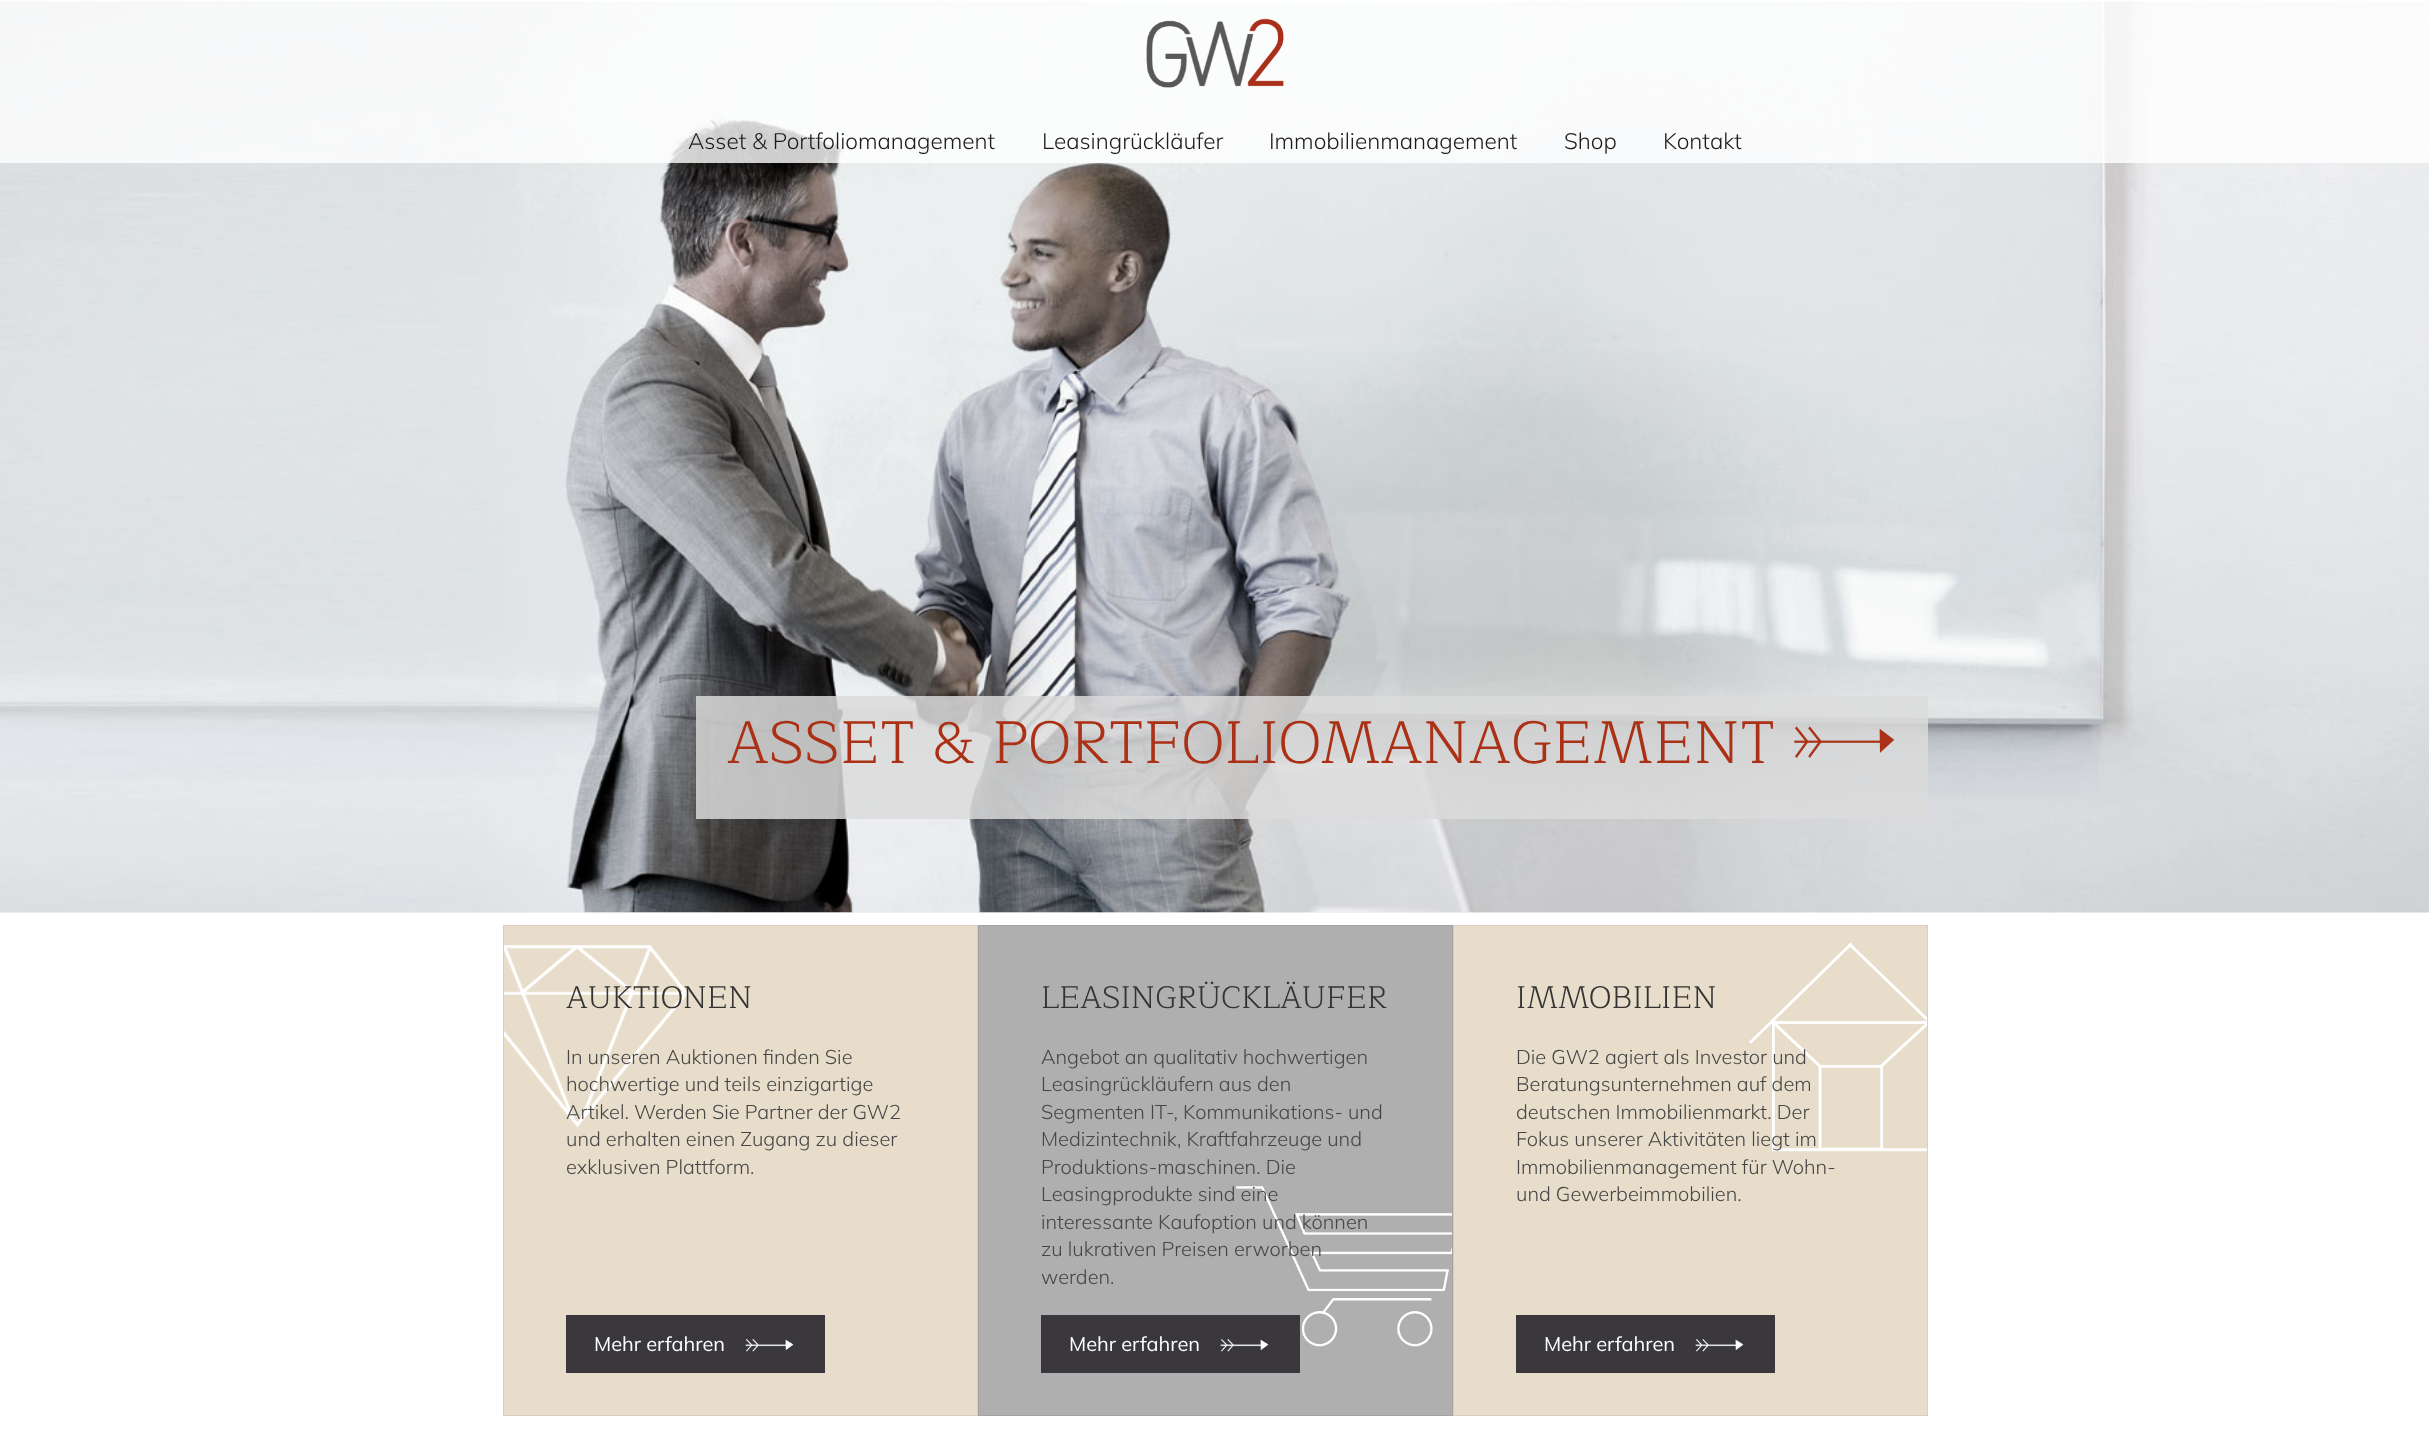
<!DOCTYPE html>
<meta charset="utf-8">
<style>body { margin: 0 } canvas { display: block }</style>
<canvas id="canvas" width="2429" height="1445"></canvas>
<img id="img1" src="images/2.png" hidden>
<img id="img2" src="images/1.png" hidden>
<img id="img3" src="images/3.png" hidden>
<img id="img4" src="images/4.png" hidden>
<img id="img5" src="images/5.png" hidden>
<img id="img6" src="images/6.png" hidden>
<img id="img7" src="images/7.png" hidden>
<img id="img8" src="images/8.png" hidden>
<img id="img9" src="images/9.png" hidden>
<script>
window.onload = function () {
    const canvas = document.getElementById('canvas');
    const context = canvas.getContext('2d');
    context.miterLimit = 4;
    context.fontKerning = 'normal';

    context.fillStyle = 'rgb(255, 255, 255)';
    context.fillRect(0, 0, 2429, 1445);
    context.fillStyle = 'rgb(240, 240, 240)';
    context.fillRect(0, 912, 2429, 1);
    context.drawImage(document.getElementById('img1'), 0, 0, 2429, 913);
    context.fillStyle = 'rgba(255, 255, 255, 0.8)';
    context.fillRect(0, 0, 2429, 163);
    context.drawImage(document.getElementById('img2'), 1146, 18, 138, 70);
    context.fillStyle = 'rgba(219, 219, 219, 0.84)';
    context.fillRect(696, 696, 1232, 123);
    context.drawImage(document.getElementById('img3'), 1794, 726, 101, 32);
    context.fillStyle = 'rgb(231, 221, 202)';
    context.fillRect(504, 926, 473, 489);
    context.drawImage(document.getElementById('img4'), 504, 945, 185, 183);
    context.strokeStyle = 'rgb(217, 206, 185)';
    context.strokeRect(503.5, 925.5, 474, 490);
    context.fillStyle = 'rgb(58, 56, 60)';
    context.fillRect(566, 1315, 259, 58);
    context.drawImage(document.getElementById('img5'), 745, 1338, 49, 14);
    context.fillStyle = 'rgb(175, 175, 175)';
    context.fillRect(979, 926, 473, 489);
    context.drawImage(document.getElementById('img6'), 1236, 1186, 216, 161);
    context.strokeStyle = 'rgb(163, 162, 162)';
    context.strokeRect(978.5, 925.5, 474, 490);
    context.fillStyle = 'rgb(58, 56, 60)';
    context.fillRect(1041, 1315, 259, 58);
    context.drawImage(document.getElementById('img7'), 1220, 1338, 49, 14);
    context.fillStyle = 'rgb(231, 221, 202)';
    context.fillRect(1454, 926, 473, 489);
    context.drawImage(document.getElementById('img8'), 1749, 942, 178, 210);
    context.strokeStyle = 'rgb(217, 206, 185)';
    context.strokeRect(1453.5, 925.5, 474, 490);
    context.fillStyle = 'rgb(58, 56, 60)';
    context.fillRect(1516, 1315, 259, 58);
    context.drawImage(document.getElementById('img9'), 1695, 1338, 49, 14);
    context.font = '200 22.5px Mulish';
    context.fillStyle = 'rgb(28, 28, 28)';
    context.fillText('Asset & Portfoliomanagement', 688, 149);
    context.fillText('Leasingrückläufer', 1042, 149);
    context.fillText('Immobilienmanagement', 1269, 149);
    context.fillText('Shop', 1564, 149);
    context.fillText('Kontakt', 1663, 149);
    context.font = '300 60px Maitree';
    context.fillStyle = 'rgb(170, 49, 21)';
    context.fillText('ASSET & PORTFOLIOMANAGEMENT', 727, 763);
    context.font = '300 31.25px Maitree';
    context.fillStyle = 'rgb(51, 51, 51)';
    context.fillText('AUKTIONEN', 566, 1008);
    context.font = '200 20px Mulish';
    context.fillStyle = 'rgb(70, 70, 70)';
    context.fillText('In unseren Auktionen finden Sie', 566, 1064);
    context.fillText('hochwertige und teils einzigartige', 566, 1091);
    context.fillText('Artikel. Werden Sie Partner der GW2', 566, 1119);
    context.fillText('und erhalten einen Zugang zu dieser', 566, 1146);
    context.fillText('exklusiven Plattform.', 566, 1174);
    context.font = '200 20px "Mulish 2"';
    context.fillStyle = 'rgb(255, 255, 255)';
    context.fillText('Mehr erfahren', 594, 1351);
    context.font = '300 31.25px Maitree';
    context.fillStyle = 'rgb(51, 51, 51)';
    context.fillText('LEASINGRÜCKLÄUFER', 1041, 1008);
    context.font = '200 20px Mulish';
    context.fillStyle = 'rgb(70, 70, 70)';
    context.fillText('Angebot an qualitativ hochwertigen', 1041, 1064);
    context.fillText('Leasingrückläufern aus den', 1041, 1091);
    context.fillText('Segmenten IT-, Kommunikations- und', 1041, 1119);
    context.fillText('Medizintechnik, Kraftfahrzeuge und', 1041, 1146);
    context.fillText('Produktions-maschinen. Die', 1041, 1174);
    context.fillText('Leasingprodukte sind eine', 1041, 1201);
    context.fillText('interessante Kaufoption und können', 1041, 1229);
    context.fillText('zu lukrativen Preisen erworben', 1041, 1256);
    context.fillText('werden.', 1041, 1284);
    context.font = '200 20px "Mulish 2"';
    context.fillStyle = 'rgb(255, 255, 255)';
    context.fillText('Mehr erfahren', 1069, 1351);
    context.font = '300 31.25px Maitree';
    context.fillStyle = 'rgb(51, 51, 51)';
    context.fillText('IMMOBILIEN', 1516, 1008);
    context.font = '200 20px Mulish';
    context.fillStyle = 'rgb(70, 70, 70)';
    context.fillText('Die GW2 agiert als Investor und', 1516, 1064);
    context.fillText('Beratungsunternehmen auf dem', 1516, 1091);
    context.fillText('deutschen Immobilienmarkt. Der', 1516, 1119);
    context.fillText('Fokus unserer Aktivitäten liegt im', 1516, 1146);
    context.fillText('Immobilienmanagement für Wohn-', 1516, 1174);
    context.fillText('und Gewerbeimmobilien.', 1516, 1201);
    context.font = '200 20px "Mulish 2"';
    context.fillStyle = 'rgb(255, 255, 255)';
    context.fillText('Mehr erfahren', 1544, 1351);
};
</script>
